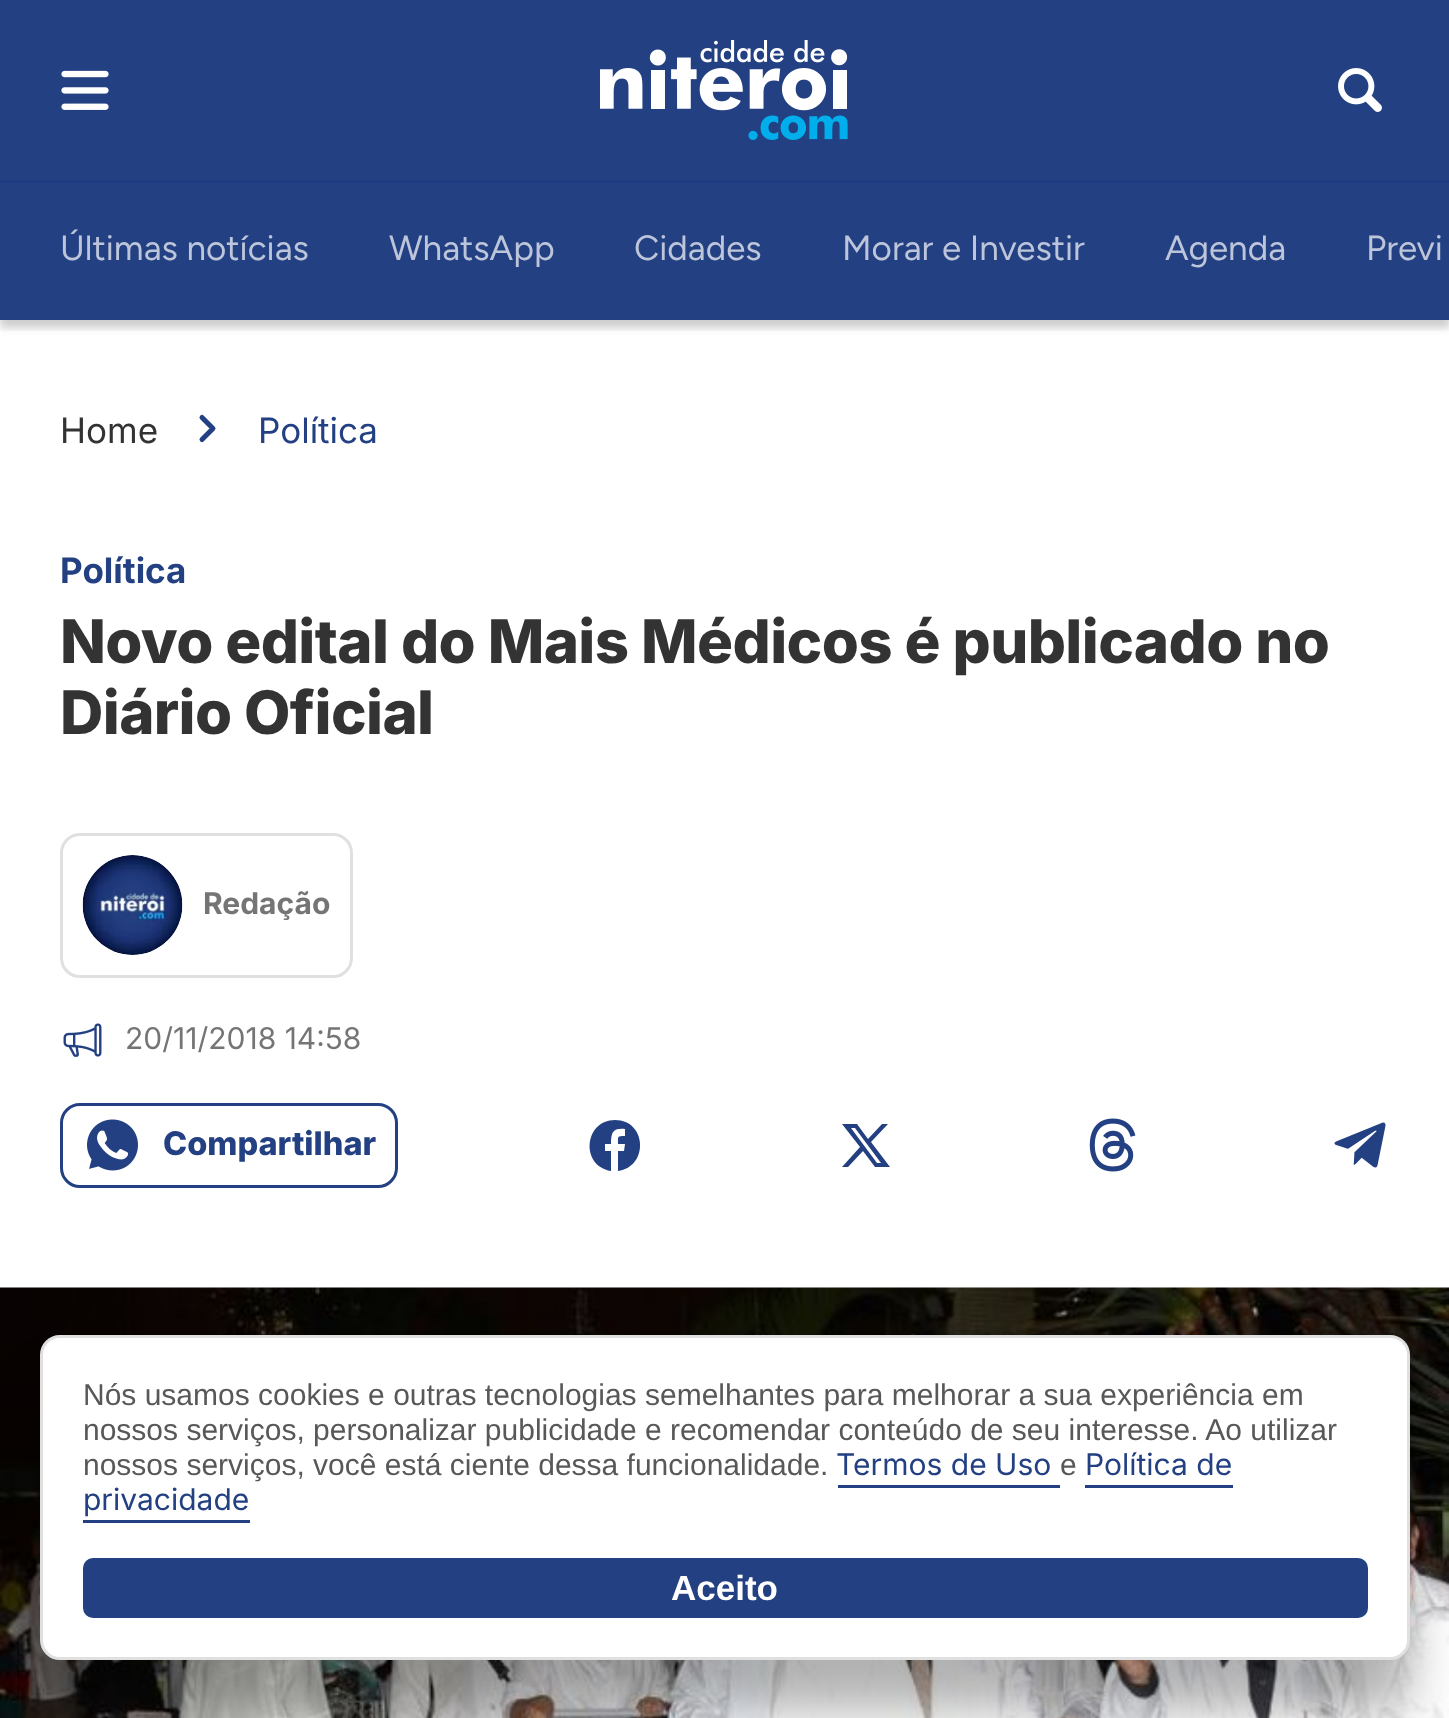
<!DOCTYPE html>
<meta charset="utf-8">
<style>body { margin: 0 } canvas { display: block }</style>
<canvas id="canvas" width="1449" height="1718"></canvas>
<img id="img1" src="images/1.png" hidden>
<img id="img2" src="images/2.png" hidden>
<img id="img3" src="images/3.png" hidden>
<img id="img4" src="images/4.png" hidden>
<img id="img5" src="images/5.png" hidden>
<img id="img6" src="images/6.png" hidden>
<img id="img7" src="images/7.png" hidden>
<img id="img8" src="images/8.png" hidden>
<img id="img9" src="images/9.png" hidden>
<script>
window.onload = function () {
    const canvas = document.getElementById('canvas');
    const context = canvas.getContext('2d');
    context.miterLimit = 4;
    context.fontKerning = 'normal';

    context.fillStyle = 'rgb(255, 255, 255)';
    context.fillRect(0, 0, 1449, 1718);
    context.fillStyle = 'rgba(0, 0, 0, 0.1)';
    context.filter = 'blur(4px)';
    context.beginPath();
    context.rect(0, 8, 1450, 320);
    context.fill();
    context.filter = 'none';
    context.fillStyle = 'rgb(35, 64, 131)';
    context.fillRect(0, 0, 1449, 320);
    context.drawImage(document.getElementById('img1'), 61, 70, 48, 40);
    context.drawImage(document.getElementById('img2'), 600, 40, 248, 100);
    context.drawImage(document.getElementById('img3'), 1338, 68, 44, 44);
    context.save();
    context.beginPath();
    context.rect(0, 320, 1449, 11);
    context.clip();
    context.fillStyle = 'rgba(0, 0, 0, 0.1)';
    context.filter = 'blur(4px)';
    context.beginPath();
    context.rect(0, 188, 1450, 140);
    context.fill();
    context.filter = 'none';
    context.restore();
    context.fillStyle = 'rgb(29, 59, 130)';
    context.fillRect(0, 180, 1449, 3);
    context.beginPath();
    context.moveTo(202, 439.5);
    context.lineTo(213, 428.5);
    context.lineTo(202, 417.5);
    context.strokeStyle = 'rgb(35, 64, 131)';
    context.lineWidth = 5;
    context.lineCap = 'round';
    context.lineJoin = 'round';
    context.stroke();
    context.beginPath();
    context.roundRect(61.5, 834.5, 290, 142, 18.5);
    context.strokeStyle = 'rgb(224, 224, 224)';
    context.lineWidth = 3;
    context.lineJoin = 'miter';
    context.stroke();
    context.drawImage(document.getElementById('img4'), 82, 855, 101, 100);
    context.drawImage(document.getElementById('img5'), 63, 1023, 39, 34);
    context.beginPath();
    context.roundRect(61.5, 1104.5, 335, 82, 18.5);
    context.strokeStyle = 'rgb(35, 64, 131)';
    context.stroke();
    context.drawImage(document.getElementById('img6'), 87, 1119, 51, 52);
    context.fillStyle = 'rgb(35, 64, 131)';
    context.beginPath();
    context.moveTo(615, 1120);
    context.bezierCurveTo(584, 1120, 580, 1166, 611, 1171);
    context.lineTo(611, 1151);
    context.lineTo(605, 1151);
    context.lineTo(605, 1144);
    context.lineTo(611, 1144);
    context.bezierCurveTo(611, 1132, 613, 1128, 625, 1129);
    context.lineTo(625, 1136);
    context.bezierCurveTo(617, 1136, 618, 1136, 618, 1144);
    context.lineTo(625, 1144);
    context.lineTo(624, 1151);
    context.lineTo(618, 1151);
    context.lineTo(618, 1171);
    context.bezierCurveTo(649, 1167, 647, 1120, 615, 1120);
    context.closePath();
    context.fill();
    context.beginPath();
    context.moveTo(871, 1142);
    context.lineTo(888, 1124);
    context.lineTo(882, 1124);
    context.lineTo(868, 1139);
    context.lineTo(857, 1124);
    context.lineTo(842, 1124);
    context.lineTo(860, 1147);
    context.lineTo(842, 1167);
    context.lineTo(848, 1167);
    context.lineTo(863, 1151);
    context.lineTo(875, 1167);
    context.lineTo(890, 1167);
    context.closePath();
    context.moveTo(855, 1128);
    context.lineTo(881, 1163);
    context.lineTo(877, 1163);
    context.lineTo(851, 1128);
    context.closePath();
    context.fill();
    context.drawImage(document.getElementById('img7'), 1089, 1118, 47, 54);
    context.drawImage(document.getElementById('img8'), 1334, 1122, 52, 46);
    context.drawImage(document.getElementById('img9'), 0, 1287, 1449, 431);
    context.fillStyle = 'rgba(0, 0, 0, 0.3)';
    context.filter = 'blur(25px)';
    context.beginPath();
    context.roundRect(40, 1385, 1370, 325, 20);
    context.fill();
    context.filter = 'none';
    context.fillStyle = 'rgb(255, 255, 255)';
    context.beginPath();
    context.roundRect(41.5, 1336.5, 1367, 322, 18.5);
    context.fill();
    context.strokeStyle = 'rgb(224, 224, 224)';
    context.stroke();
    context.fillStyle = 'rgb(35, 64, 131)';
    context.fillRect(838, 1485, 222, 3);
    context.fillRect(1085, 1485, 148, 3);
    context.fillRect(83, 1520, 167, 3);
    context.beginPath();
    context.roundRect(83, 1558, 1285, 60, 10);
    context.fill();
    context.font = '35px Figtree';
    context.fillStyle = 'rgb(189, 197, 218)';
    context.fillText('Últimas notícias', 60, 260);
    context.fillText('WhatsApp', 389, 260);
    context.fillText('Cidades', 634, 260);
    context.fillText('Morar e Investir', 842, 260);
    context.fillText('Agenda', 1165, 260);
    context.fillText('Previ', 1366, 260);
    context.font = '35px Inter';
    context.fillStyle = 'rgb(51, 51, 51)';
    context.fillText('Home', 60, 443);
    context.fillStyle = 'rgb(35, 64, 131)';
    context.fillText('Política', 258, 443);
    context.font = 'bold 35px Inter';
    context.fillText('Política', 60, 583);
    context.letterSpacing = '-0.6px';
    context.font = '800 60px Inter';
    context.fillStyle = 'rgb(51, 51, 51)';
    context.fillText('Novo edital do Mais Médicos é publicado no', 60, 663);
    context.fillText('Diário Oficial', 60, 734);
    context.save();
    context.beginPath();
    context.rect(203, 890, 127, 30);
    context.clip();
    context.letterSpacing = '0px';
    context.font = 'bold 30px Inter';
    context.fillStyle = 'rgb(117, 117, 117)';
    context.fillText('Redação', 203, 914);
    context.restore();
    context.letterSpacing = '0px';
    context.font = '30px Inter';
    context.fillStyle = 'rgb(117, 117, 117)';
    context.fillText('20/11/2018 14:58', 125, 1049);
    context.font = '800 32.5px Inter';
    context.fillStyle = 'rgb(35, 64, 131)';
    context.fillText('Compartilhar', 163, 1155);
    context.font = '30px Liberation Sans';
    context.fillStyle = 'rgb(88, 88, 88)';
    context.fillText('Nós usamos cookies e outras tecnologias semelhantes para melhorar a sua experiência em', 83, 1405);
    context.fillText('nossos serviços, personalizar publicidade e recomendar conteúdo de seu interesse. Ao utilizar', 83, 1440);
    context.fillText('nossos serviços, você está ciente dessa funcionalidade.', 83, 1475);
    context.font = '30px Inter';
    context.fillStyle = 'rgb(35, 64, 131)';
    context.fillText('Termos de Uso', 836, 1475);
    context.font = '30px Liberation Sans';
    context.fillStyle = 'rgb(88, 88, 88)';
    context.fillText('e', 1060, 1475);
    context.font = '30px Inter';
    context.fillStyle = 'rgb(35, 64, 131)';
    context.fillText('Política de', 1085, 1475);
    context.fillText('privacidade', 83, 1510);
    context.font = 'bold 35px Liberation Sans';
    context.fillStyle = 'rgb(255, 255, 255)';
    context.fillText('Aceito', 671, 1600);
};
</script>
